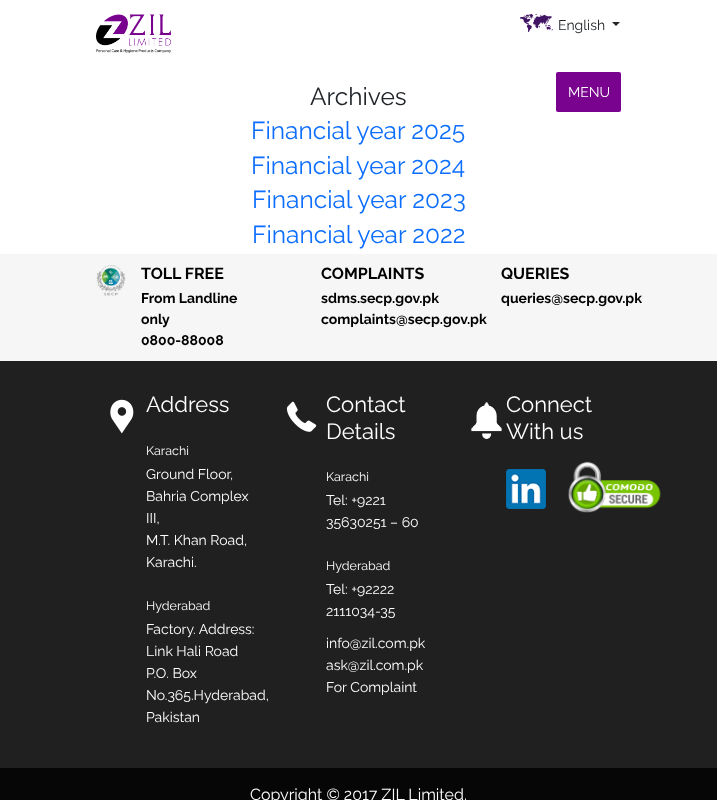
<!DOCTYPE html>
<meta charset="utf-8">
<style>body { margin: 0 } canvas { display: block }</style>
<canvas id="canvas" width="717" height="800"></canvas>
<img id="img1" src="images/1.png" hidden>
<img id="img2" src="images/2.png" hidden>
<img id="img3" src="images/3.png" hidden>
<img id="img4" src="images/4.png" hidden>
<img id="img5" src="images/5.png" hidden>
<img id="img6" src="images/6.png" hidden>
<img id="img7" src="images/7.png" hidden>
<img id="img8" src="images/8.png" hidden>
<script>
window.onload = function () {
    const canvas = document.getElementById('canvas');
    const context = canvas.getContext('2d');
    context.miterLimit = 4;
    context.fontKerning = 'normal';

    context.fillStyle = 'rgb(255, 255, 255)';
    context.fillRect(0, 0, 717, 800);
    context.drawImage(document.getElementById('img1'), 96, 14, 75, 39);
    context.drawImage(document.getElementById('img2'), 520, 14, 33, 18);
    context.fillStyle = 'rgb(33, 37, 41)';
    context.beginPath();
    context.moveTo(612, 22);
    context.lineTo(620, 22);
    context.lineTo(616, 26);
    context.closePath();
    context.fill();
    context.fillStyle = 'rgb(121, 2, 142)';
    context.beginPath();
    context.roundRect(556, 72, 65, 40, 2);
    context.fill();
    context.fillStyle = 'rgb(246, 246, 246)';
    context.fillRect(0, 254, 717, 107);
    context.drawImage(document.getElementById('img3'), 96, 264, 30, 32);
    context.fillStyle = 'rgb(33, 32, 32)';
    context.fillRect(0, 361, 717, 407);
    context.drawImage(document.getElementById('img4'), 110, 399, 24, 35);
    context.drawImage(document.getElementById('img5'), 286, 401, 31, 31);
    context.drawImage(document.getElementById('img6'), 471, 402, 31, 37);
    context.drawImage(document.getElementById('img7'), 506, 469, 40, 40);
    context.drawImage(document.getElementById('img8'), 568, 461, 93, 52);
    context.fillStyle = 'rgb(6, 6, 6)';
    context.fillRect(0, 768, 717, 32);
    context.font = '14px Raleway';
    context.fillStyle = 'rgb(33, 37, 41)';
    context.fillText('English', 558, 30);
    context.fillStyle = 'rgb(255, 255, 255)';
    context.fillText('MENU', 568, 97);
    context.font = '24.5px Raleway';
    context.fillStyle = 'rgb(33, 37, 41)';
    context.fillText('Archives', 310, 105);
    context.fillStyle = 'rgb(13, 110, 253)';
    context.fillText('Financial year 2025', 251, 139);
    context.fillText('Financial year 2024', 251, 174);
    context.fillText('Financial year 2023', 252, 208);
    context.fillText('Financial year 2022', 252, 243);
    context.font = 'bold 16px Raleway';
    context.fillStyle = 'rgb(0, 0, 0)';
    context.fillText('TOLL FREE', 141, 279);
    context.font = 'bold 14px Raleway';
    context.fillText('From Landline', 141, 303);
    context.fillText('only', 141, 324);
    context.fillText('0800-88008', 141, 345);
    context.font = 'bold 16px Raleway';
    context.fillText('COMPLAINTS', 321, 279);
    context.font = 'bold 14px Raleway';
    context.fillText('sdms.secp.gov.pk', 321, 303);
    context.fillText('complaints@secp.gov.pk', 321, 324);
    context.font = 'bold 16px Raleway';
    context.fillText('QUERIES', 501, 279);
    context.font = 'bold 14px Raleway';
    context.fillText('queries@secp.gov.pk', 501, 303);
    context.font = '22px Raleway';
    context.fillStyle = 'rgb(255, 255, 255)';
    context.fillText('Address', 146, 412);
    context.font = '12.5px Raleway';
    context.fillText('Karachi', 146, 455);
    context.font = '14px Raleway';
    context.fillText('Ground Floor,', 146, 479);
    context.fillText('Bahria Complex', 146, 501);
    context.fillText('III,', 146, 523);
    context.fillText('M.T. Khan Road,', 146, 545);
    context.fillText('Karachi.', 146, 567);
    context.font = '12.5px Raleway';
    context.fillText('Hyderabad', 146, 610);
    context.font = '14px Raleway';
    context.fillText('Factory. Address:', 146, 634);
    context.fillText('Link Hali Road', 146, 656);
    context.fillText('P.O. Box', 146, 678);
    context.fillText('No.365.Hyderabad,', 146, 700);
    context.fillText('Pakistan', 146, 722);
    context.font = '22px Raleway';
    context.fillText('Contact', 326, 412);
    context.fillText('Details', 326, 439);
    context.font = '12.5px Raleway';
    context.fillText('Karachi', 326, 481);
    context.font = '14px Raleway';
    context.fillText('Tel: +9221', 326, 505);
    context.fillText('35630251 – 60', 326, 527);
    context.font = '12.5px Raleway';
    context.fillText('Hyderabad', 326, 570);
    context.font = '14px Raleway';
    context.fillText('Tel: +92222', 326, 594);
    context.fillText('2111034-35', 326, 616);
    context.fillText('info@zil.com.pk', 326, 648);
    context.fillText('ask@zil.com.pk', 326, 670);
    context.fillText('For Complaint', 326, 692);
    context.font = '22px Raleway';
    context.fillText('Connect', 506, 412);
    context.fillText('With us', 506, 439);
    context.font = '16px Raleway';
    context.fillText('Copyright © 2017 ZIL Limited.', 250, 800);
};
</script>
